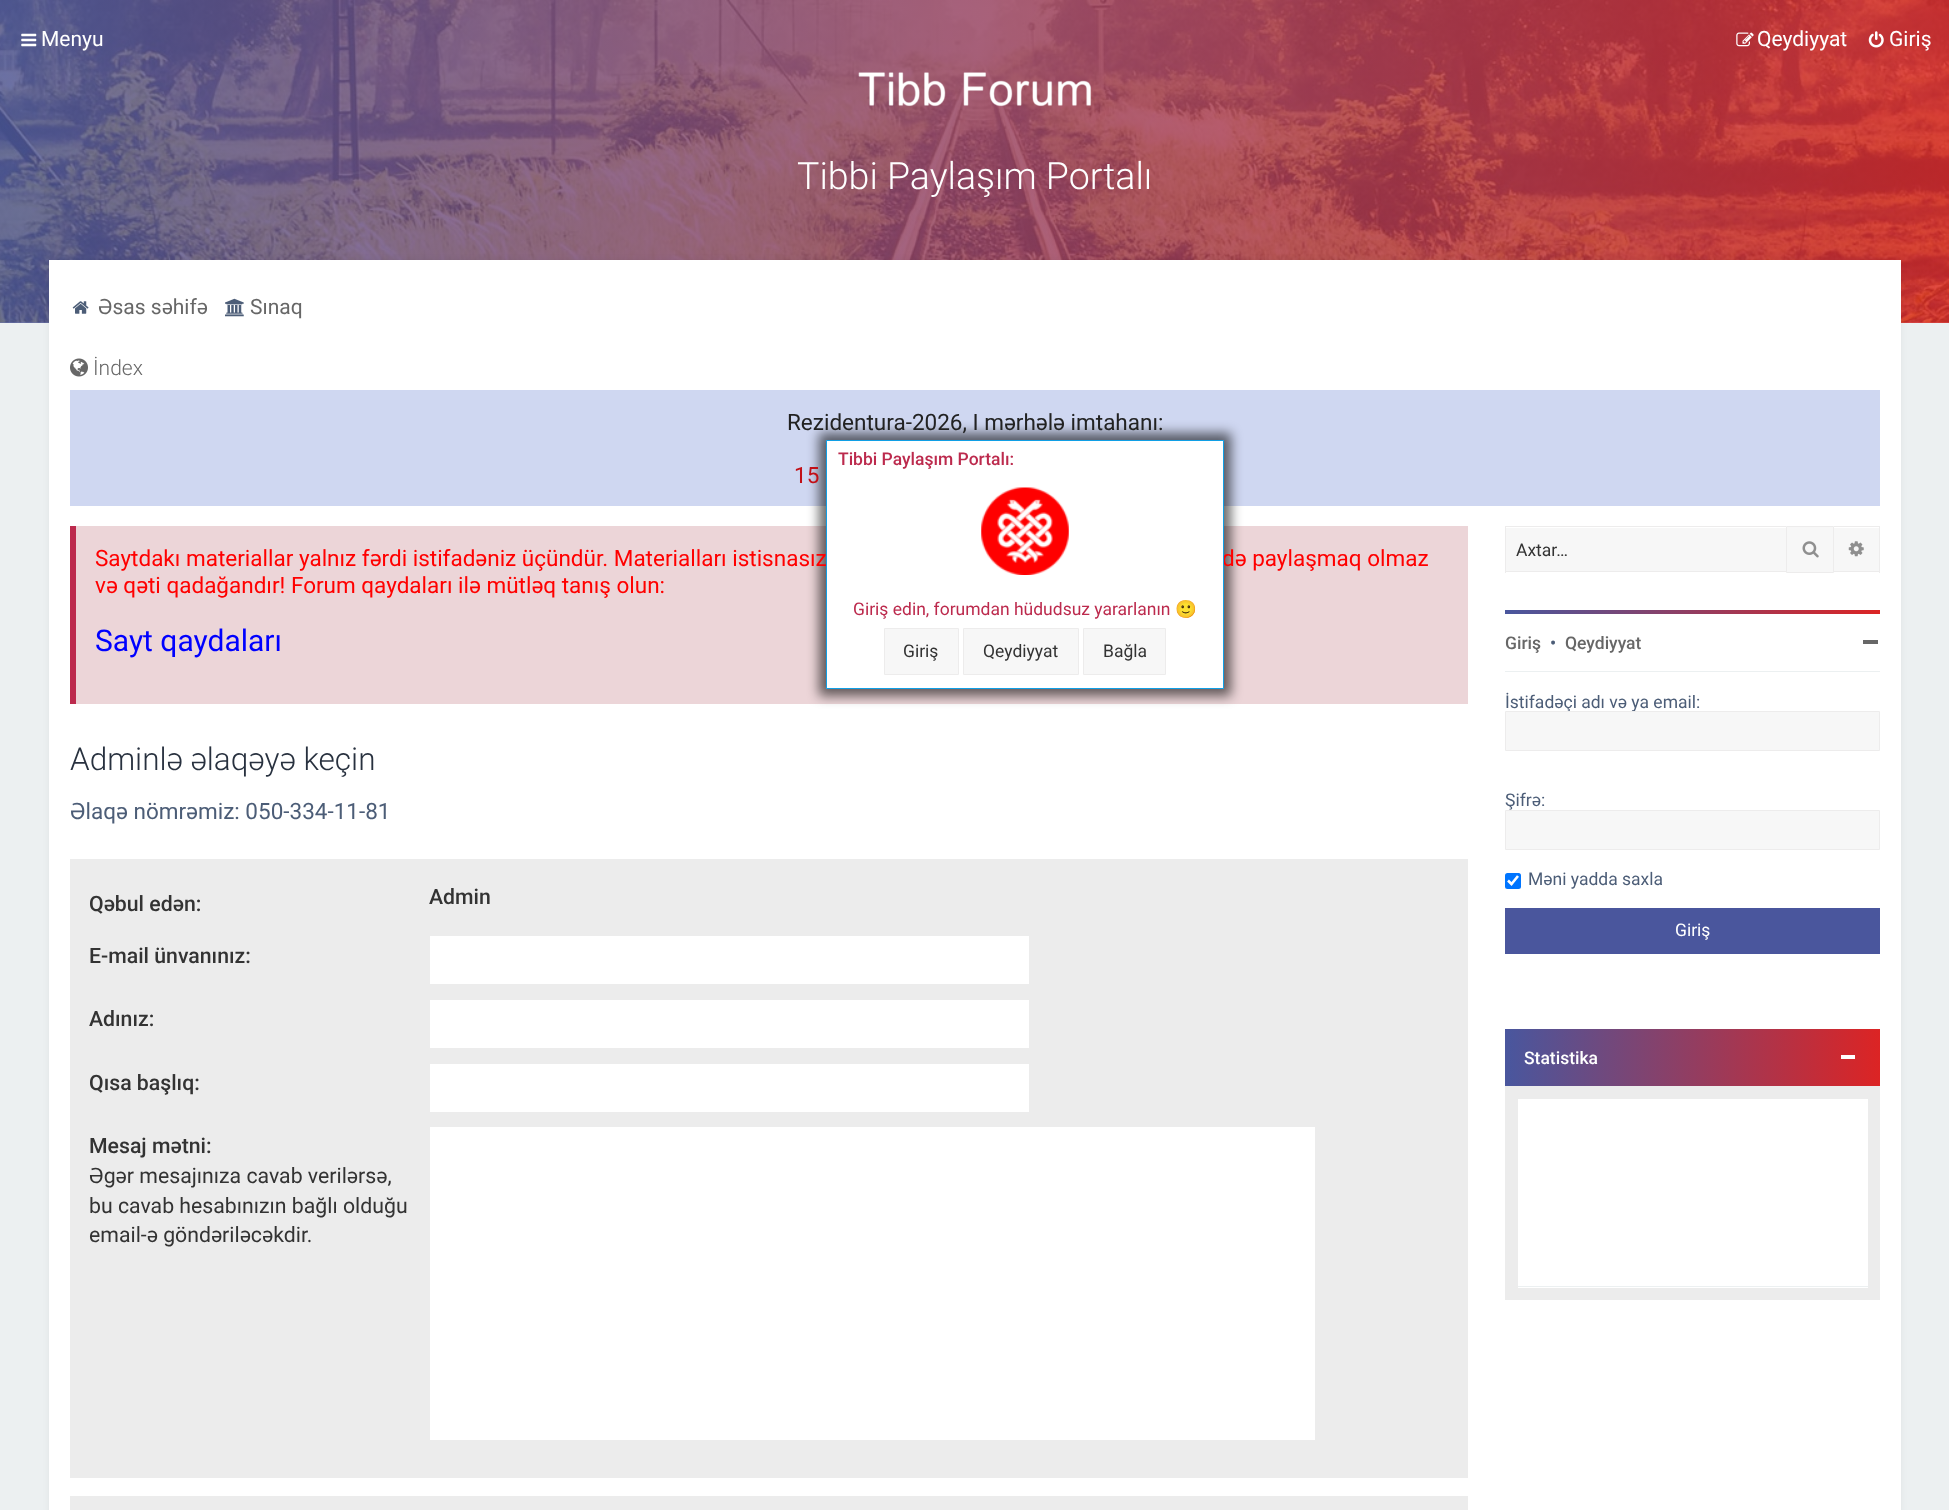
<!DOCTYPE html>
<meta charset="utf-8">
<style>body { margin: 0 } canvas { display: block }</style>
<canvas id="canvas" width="1949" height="1510"></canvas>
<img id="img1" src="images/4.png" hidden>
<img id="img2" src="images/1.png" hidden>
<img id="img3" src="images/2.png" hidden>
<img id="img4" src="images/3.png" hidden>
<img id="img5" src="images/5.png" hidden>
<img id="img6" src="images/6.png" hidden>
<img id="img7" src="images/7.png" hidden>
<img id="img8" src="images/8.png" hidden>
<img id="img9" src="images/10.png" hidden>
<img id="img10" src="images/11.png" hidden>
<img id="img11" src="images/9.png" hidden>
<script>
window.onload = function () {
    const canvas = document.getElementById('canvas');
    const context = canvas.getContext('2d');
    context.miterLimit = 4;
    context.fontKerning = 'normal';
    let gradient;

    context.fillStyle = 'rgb(236, 240, 241)';
    context.fillRect(0, 0, 1949, 1510);
    context.drawImage(document.getElementById('img1'), 0, 0, 1949, 323);
    gradient = context.createLinearGradient(0, 161, 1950, 161);
    gradient.addColorStop(0, 'rgba(74, 86, 157, 0.8)');
    gradient.addColorStop(0.01, 'rgba(75, 86, 156, 0.8)');
    gradient.addColorStop(1, 'rgba(220, 36, 36, 0.8)');
    context.fillStyle = gradient;
    context.fillRect(0, 0, 1949, 323);
    context.drawImage(document.getElementById('img2'), 21, 33, 16, 14);
    context.drawImage(document.getElementById('img3'), 1736, 32, 18, 15);
    context.drawImage(document.getElementById('img4'), 1868, 31, 16, 17);
    context.drawImage(document.getElementById('img5'), 858, 72, 234, 35);
    context.fillStyle = 'rgba(0, 0, 0, 0.05)';
    context.filter = 'blur(3px)';
    context.beginPath();
    context.rect(49, 260, 1852, 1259);
    context.fill();
    context.filter = 'none';
    context.fillStyle = 'rgb(255, 255, 255)';
    context.fillRect(49, 260, 1852, 1250);
    context.drawImage(document.getElementById('img6'), 72, 301, 17, 13);
    context.drawImage(document.getElementById('img7'), 225, 298, 19, 19);
    context.drawImage(document.getElementById('img8'), 70, 358, 18, 19);
    context.fillStyle = 'rgb(207, 215, 241)';
    context.fillRect(70, 390, 1810, 116);
    context.fillStyle = 'rgb(236, 213, 216)';
    context.fillRect(76, 526, 1392, 178);
    context.fillStyle = 'rgba(0, 0, 0, 0.58)';
    context.filter = 'blur(6px)';
    context.beginPath();
    context.rect(819, 433, 412, 263);
    context.fill();
    context.filter = 'none';
    context.fillStyle = 'rgb(188, 42, 77)';
    context.fillRect(70, 526, 6, 178);
    context.fillStyle = 'rgb(236, 236, 236)';
    context.fillRect(70, 859, 1398, 619);
    context.fillStyle = 'rgb(255, 255, 255)';
    context.fillRect(430, 936, 599, 48);
    context.fillRect(430, 1000, 599, 48);
    context.fillRect(430, 1064, 599, 48);
    context.fillRect(430, 1127, 885, 313);
    context.fillStyle = 'rgb(236, 236, 236)';
    context.fillRect(70, 1496, 1398, 14);
    context.fillStyle = 'rgb(247, 247, 247)';
    context.fillRect(1506, 528, 280, 43);
    context.fillStyle = 'rgb(237, 236, 236)';
    context.fillRect(1505, 526, 281, 1);
    context.fillRect(1505, 571, 281, 1);
    context.fillRect(1505, 526, 1, 47);
    context.fillStyle = 'rgb(247, 247, 247)';
    context.beginPath();
    context.rect(1786.5, 526.5, 47, 46);
    context.fill();
    context.strokeStyle = 'rgb(237, 236, 236)';
    context.stroke();
    context.drawImage(document.getElementById('img9'), 1802, 541, 17, 17);
    context.fillRect(1834, 528, 45, 43);
    context.fillStyle = 'rgb(237, 236, 236)';
    context.fillRect(1834, 526, 46, 1);
    context.fillRect(1879, 526, 1, 47);
    context.fillRect(1834, 571, 46, 1);
    context.drawImage(document.getElementById('img10'), 1848, 541, 16, 16);
    gradient = context.createLinearGradient(1505, 612, 1880, 612);
    gradient.addColorStop(0.01, 'rgb(74, 86, 157)');
    gradient.addColorStop(1, 'rgb(220, 36, 36)');
    context.fillStyle = gradient;
    context.fillRect(1505, 610, 375, 4);
    context.fillStyle = 'rgb(103, 103, 103)';
    context.fillRect(1863, 640, 15, 4);
    context.fillStyle = 'rgb(236, 240, 241)';
    context.fillRect(1505, 671, 375, 1);
    context.fillStyle = 'rgb(247, 247, 247)';
    context.beginPath();
    context.rect(1505.5, 810.5, 374, 39);
    context.fill();
    context.stroke();
    context.fillStyle = 'rgb(0, 117, 255)';
    context.beginPath();
    context.roundRect(1505, 873, 16, 16, 2.5);
    context.fill();
    context.beginPath();
    context.moveTo(1508, 880.5);
    context.lineTo(1511.5, 884);
    context.lineTo(1518, 876);
    context.strokeStyle = 'rgb(255, 255, 255)';
    context.lineWidth = 2.6;
    context.stroke();
    context.fillStyle = 'rgb(74, 86, 157)';
    context.fillRect(1505, 908, 375, 46);
    context.fillStyle = 'rgb(236, 236, 236)';
    context.fillRect(1505, 1086, 375, 214);
    gradient = context.createLinearGradient(1505, 1058, 1880, 1058);
    gradient.addColorStop(0.01, 'rgb(74, 86, 157)');
    gradient.addColorStop(1, 'rgb(220, 36, 36)');
    context.fillStyle = gradient;
    context.fillRect(1505, 1029, 375, 57);
    context.fillStyle = 'rgb(255, 255, 255)';
    context.fillRect(1841, 1055, 14, 4);
    context.fillRect(1518, 1099, 350, 189);
    context.fillStyle = 'rgb(236, 240, 241)';
    context.fillRect(1518, 1286, 350, 1);
    context.font = '21px Roboto';
    context.fillStyle = 'rgb(255, 255, 255)';
    context.fillText('Menyu', 41, 46);
    context.fillText('Qeydiyyat', 1757, 46);
    context.fillText('Giriş', 1889, 46);
    context.font = '300 37.5px Roboto';
    context.fillText('Tibbi Paylaşım Portalı', 797, 189);
    context.font = '21px Roboto';
    context.fillStyle = 'rgb(103, 103, 103)';
    context.fillText('Əsas səhifə', 98, 314);
    context.fillText('Sınaq', 250, 314);
    context.font = '300 21px Roboto';
    context.fillText('İndex', 93, 375);
    context.font = '22.5px Roboto';
    context.fillStyle = 'rgb(34, 34, 34)';
    context.fillText('Rezidentura-2026, I mərhələ imtahanı:', 787, 430);
    context.fillStyle = 'rgb(194, 16, 23)';
    context.fillText('15', 794, 483);
    context.fillStyle = 'rgb(255, 0, 0)';
    context.fillText('Saytdakı materiallar yalnız fərdi istifadəniz üçündür. Materialları istisnasız', 95, 566);
    context.fillText('də paylaşmaq olmaz', 1222, 566);
    context.fillStyle = 'rgb(255, 255, 255)';
    context.beginPath();
    context.rect(826.5, 440.5, 397, 248);
    context.fill();
    context.strokeStyle = 'rgb(16, 159, 229)';
    context.lineWidth = 1;
    context.stroke();
    context.fillStyle = 'rgb(247, 247, 247)';
    context.beginPath();
    context.rect(1083.5, 628.5, 82, 46);
    context.fill();
    context.strokeStyle = 'rgb(237, 236, 236)';
    context.stroke();
    context.font = '17.5px Roboto';
    context.fillStyle = 'rgb(51, 51, 51)';
    context.fillText('Bağla', 1103, 657);
    context.fillStyle = 'rgb(247, 247, 247)';
    context.beginPath();
    context.rect(963.5, 628.5, 115, 46);
    context.fill();
    context.stroke();
    context.fillStyle = 'rgb(51, 51, 51)';
    context.fillText('Qeydiyyat', 983, 657);
    context.fillStyle = 'rgb(247, 247, 247)';
    context.beginPath();
    context.rect(884.5, 628.5, 74, 46);
    context.fill();
    context.stroke();
    context.fillStyle = 'rgb(51, 51, 51)';
    context.fillText('Giriş', 903, 657);
    context.font = '17.5px Noto Color Emoji';
    context.fillStyle = 'rgb(188, 42, 77)';
    context.fillText('🙂', 1175, 615);
    context.font = '17.5px Roboto';
    context.fillText('Giriş edin, forumdan hüdudsuz yararlanın', 853, 615);
    context.drawImage(document.getElementById('img11'), 981, 487, 88, 88);
    context.font = '500 17.5px Roboto';
    context.fillText('Tibbi Paylaşım Portalı:', 838, 465);
    context.font = '22.5px Roboto';
    context.fillStyle = 'rgb(255, 0, 0)';
    context.fillText('və qəti qadağandır! Forum qaydaları ilə mütləq tanış olun:', 95, 593);
    context.font = '30px Roboto';
    context.fillStyle = 'rgb(0, 0, 255)';
    context.fillText('Sayt qaydaları', 95, 651);
    context.font = '300 31.5px Roboto';
    context.fillStyle = 'rgb(40, 49, 63)';
    context.fillText('Adminlə əlaqəyə keçin', 70, 770);
    context.font = '22.5px Roboto';
    context.fillStyle = 'rgb(76, 93, 119)';
    context.fillText('Əlaqə nömrəmiz: 050-334-11-81', 70, 819);
    context.font = '500 21.25px Roboto';
    context.fillStyle = 'rgb(51, 51, 51)';
    context.fillText('Qəbul edən:', 89, 911);
    context.fillText('Admin', 429, 904);
    context.fillText('E-mail ünvanınız:', 89, 963);
    context.fillText('Adınız:', 89, 1026);
    context.fillText('Qısa başlıq:', 89, 1090);
    context.fillText('Mesaj mətni:', 89, 1153);
    context.font = '21.25px Roboto';
    context.fillText('Əgər mesajınıza cavab verilərsə,', 89, 1183);
    context.fillText('bu cavab hesabınızın bağlı olduğu', 89, 1213);
    context.fillText('email-ə göndəriləcəkdir.', 89, 1242);
    context.font = '17.5px Roboto';
    context.fillText('Axtar…', 1516, 556);
    context.font = '500 17.5px Roboto';
    context.fillStyle = 'rgb(103, 103, 103)';
    context.fillText('Giriş', 1505, 649);
    context.fillStyle = 'rgb(76, 93, 119)';
    context.fillText('•', 1550, 649);
    context.fillStyle = 'rgb(103, 103, 103)';
    context.fillText('Qeydiyyat', 1565, 649);
    context.font = '17.5px Roboto';
    context.fillStyle = 'rgb(76, 93, 119)';
    context.fillText('İstifadəçi adı və ya email:', 1505, 708);
    context.fillStyle = 'rgb(247, 247, 247)';
    context.beginPath();
    context.rect(1505.5, 711.5, 374, 39);
    context.fill();
    context.stroke();
    context.fillStyle = 'rgb(76, 93, 119)';
    context.fillText('Şifrə:', 1505, 806);
    context.fillText('Məni yadda saxla', 1528, 885);
    context.fillStyle = 'rgb(255, 255, 255)';
    context.fillText('Giriş', 1675, 936);
    context.font = '500 17.5px Roboto';
    context.fillText('Statistika', 1524, 1064);
};
</script>
